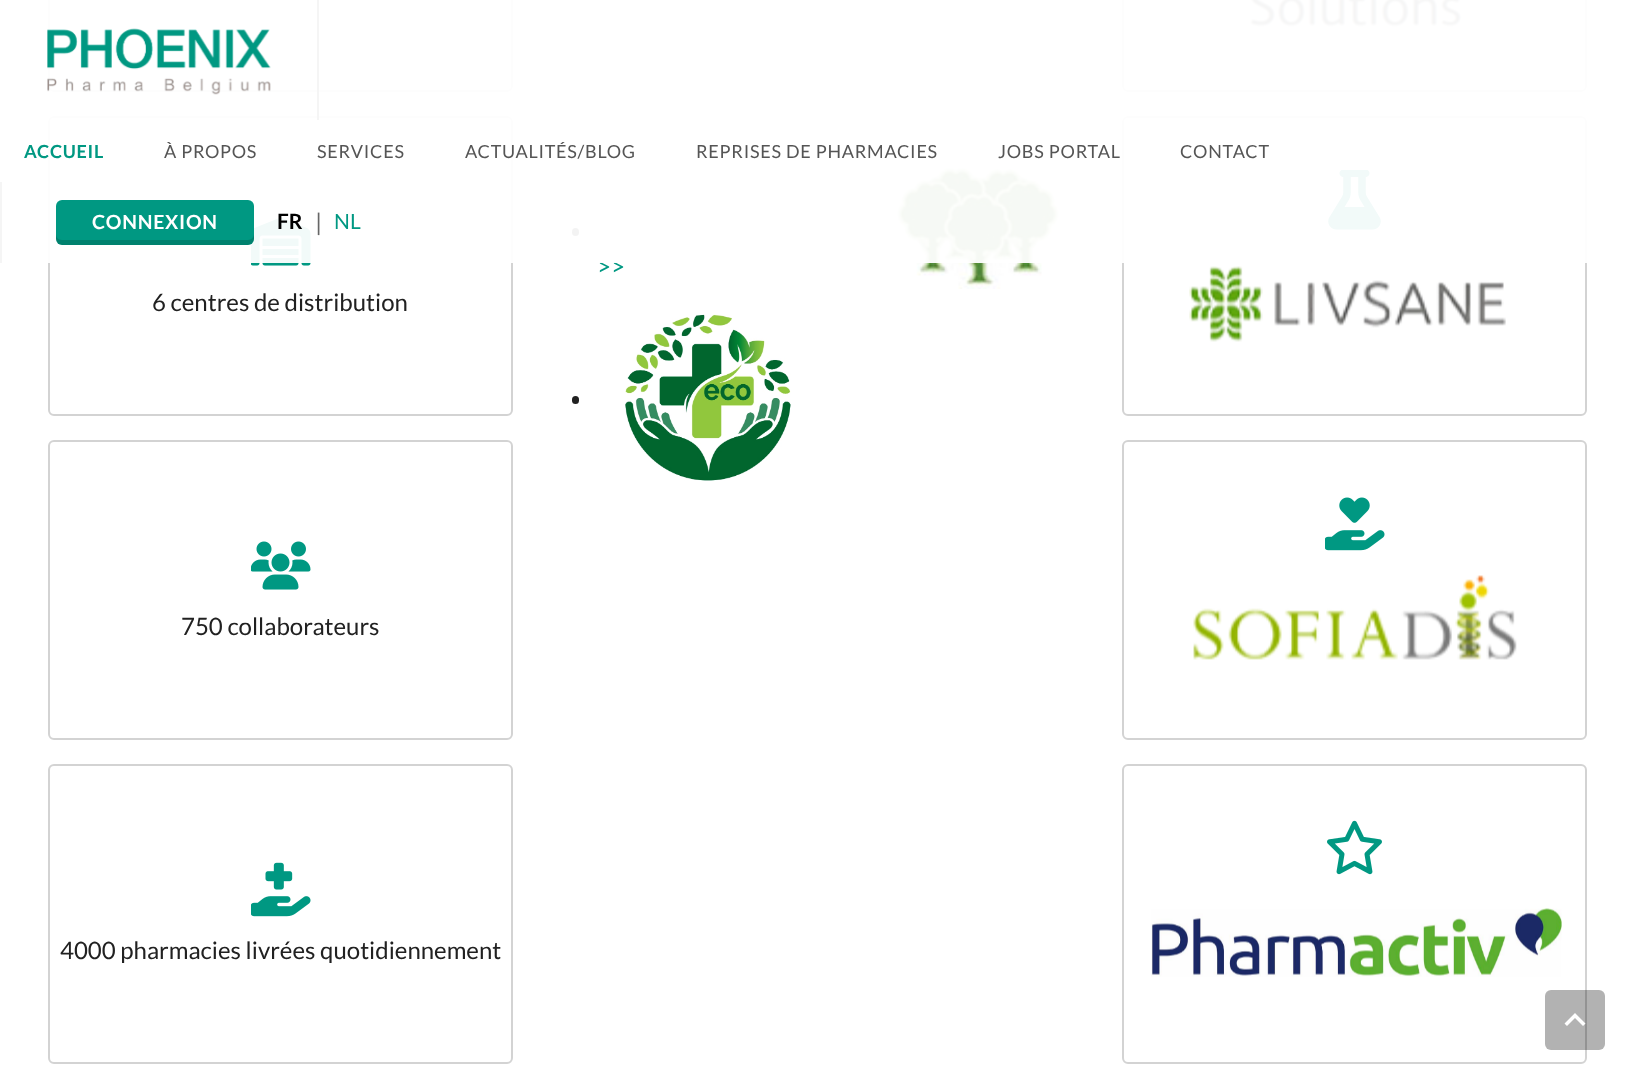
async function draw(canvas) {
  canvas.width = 1634;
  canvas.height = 1080;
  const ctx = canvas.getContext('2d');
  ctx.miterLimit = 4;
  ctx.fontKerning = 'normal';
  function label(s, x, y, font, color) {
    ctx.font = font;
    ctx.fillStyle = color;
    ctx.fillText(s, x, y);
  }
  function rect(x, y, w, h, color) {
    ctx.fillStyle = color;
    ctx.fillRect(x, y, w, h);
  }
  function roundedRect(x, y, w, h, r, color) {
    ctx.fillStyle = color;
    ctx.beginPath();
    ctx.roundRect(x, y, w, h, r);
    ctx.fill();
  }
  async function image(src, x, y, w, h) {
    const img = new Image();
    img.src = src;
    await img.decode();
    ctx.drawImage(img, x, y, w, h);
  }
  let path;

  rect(0, 0, 1634, 1080, '#fff');
  roundedRect(572, 228, 7, 8, 3.5, '#212121');
  label('>>', 597, 275, '24px Lato', '#009882');
  await image('assets/img3.png', 889, 165, 173, 124);
  ctx.beginPath();
  ctx.roundRect(1123, -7, 463, 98, 5);
  ctx.strokeStyle = '#d3d3d3';
  ctx.lineWidth = 2;
  ctx.stroke();
  await image('assets/img4.png', 1249, 0, 213, 28);
  ctx.beginPath();
  ctx.roundRect(1123, 117, 463, 298, 5);
  ctx.stroke();
  await image('assets/img5.png', 1328, 170, 53, 60);
  ctx.beginPath();
  ctx.roundRect(49, -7, 463, 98, 5);
  ctx.stroke();
  ctx.beginPath();
  ctx.roundRect(49, 117, 463, 298, 5);
  ctx.stroke();
  await image('assets/img11.png', 251, 217, 60, 49);
  rect(48, 0, 1539, 263, '#fffffff2');
  rect(317, 0, 2, 120, '#f5f5f5');
  await image('assets/img1.png', 47, 28, 224, 67);
  ctx.letterSpacing = '0.75px';
  label('ACCUEIL', 24, 158, 'bold 18px Lato', '#009882');
  label('À PROPOS', 164, 158, '18px Lato', '#555');
  label('SERVICES', 317, 158, '18px Lato', '#555');
  label('ACTUALITÉS/BLOG', 465, 158, '18px Lato', '#555');
  label('REPRISES DE PHARMACIES', 696, 158, '18px Lato', '#555');
  label('JOBS PORTAL', 998, 158, '18px Lato', '#555');
  label('CONTACT', 1180, 158, '18px Lato', '#555');
  rect(0, 182, 2, 81, '#f5f5f5');
  roundedRect(56, 200, 198, 45, 6, '#009882');
  ctx.fillStyle = '#00000026';
  path = new Path2D('M56 234V239C56 242 59 245 62 245H248C251 245 254 242 254 239V234C254 237 251 240 248 240H62C58 240 56 237 56 234Z');
  ctx.fill(path);
  label('CONNEXION', 92, 229, 'bold 19.5px Lato', '#fff');
  ctx.letterSpacing = '0px';
  label('FR', 277, 229, 'bold 21px Lato', '#000');
  label('|', 315, 231, '24px Lato', '#666');
  label('NL', 334, 229, '21px Lato', '#009882');
  roundedRect(572, 396, 7, 8, 3.5, '#212121');
  await image('assets/img2.png', 625, 314, 166, 167);
  await image('assets/img6.png', 1189, 266, 317, 76);
  ctx.beginPath();
  ctx.roundRect(1123, 441, 463, 298, 5);
  ctx.stroke();
  await image('assets/img7.png', 1325, 497, 60, 54);
  await image('assets/img8.png', 1193, 575, 324, 85);
  ctx.beginPath();
  ctx.roundRect(1123, 765, 463, 298, 5);
  ctx.stroke();
  await image('assets/img9.png', 1327, 820, 55, 55);
  await image('assets/img10.png', 1151, 908, 411, 69);
  label('6 centres de distribution', 152, 311, '24px Lato', '#212121');
  ctx.beginPath();
  ctx.roundRect(49, 441, 463, 298, 5);
  ctx.stroke();
  await image('assets/img12.png', 251, 541, 60, 49);
  label('750 collaborateurs', 181, 635, '24px Lato', '#212121');
  ctx.beginPath();
  ctx.roundRect(49, 765, 463, 298, 5);
  ctx.stroke();
  await image('assets/img13.png', 251, 862, 60, 55);
  label('4000 pharmacies livrées quotidiennement', 60, 959, '24px Lato', '#212121');
  roundedRect(1545, 990, 60, 60, 6, '#0000004d');
  ctx.fillStyle = '#fff';
  path = new Path2D('M1567 1026L1575 1018L1583 1026L1585.5 1023.5L1575 1013L1564.5 1023.5Z');
  ctx.fill(path);
}

draw(document.querySelector('canvas'));
